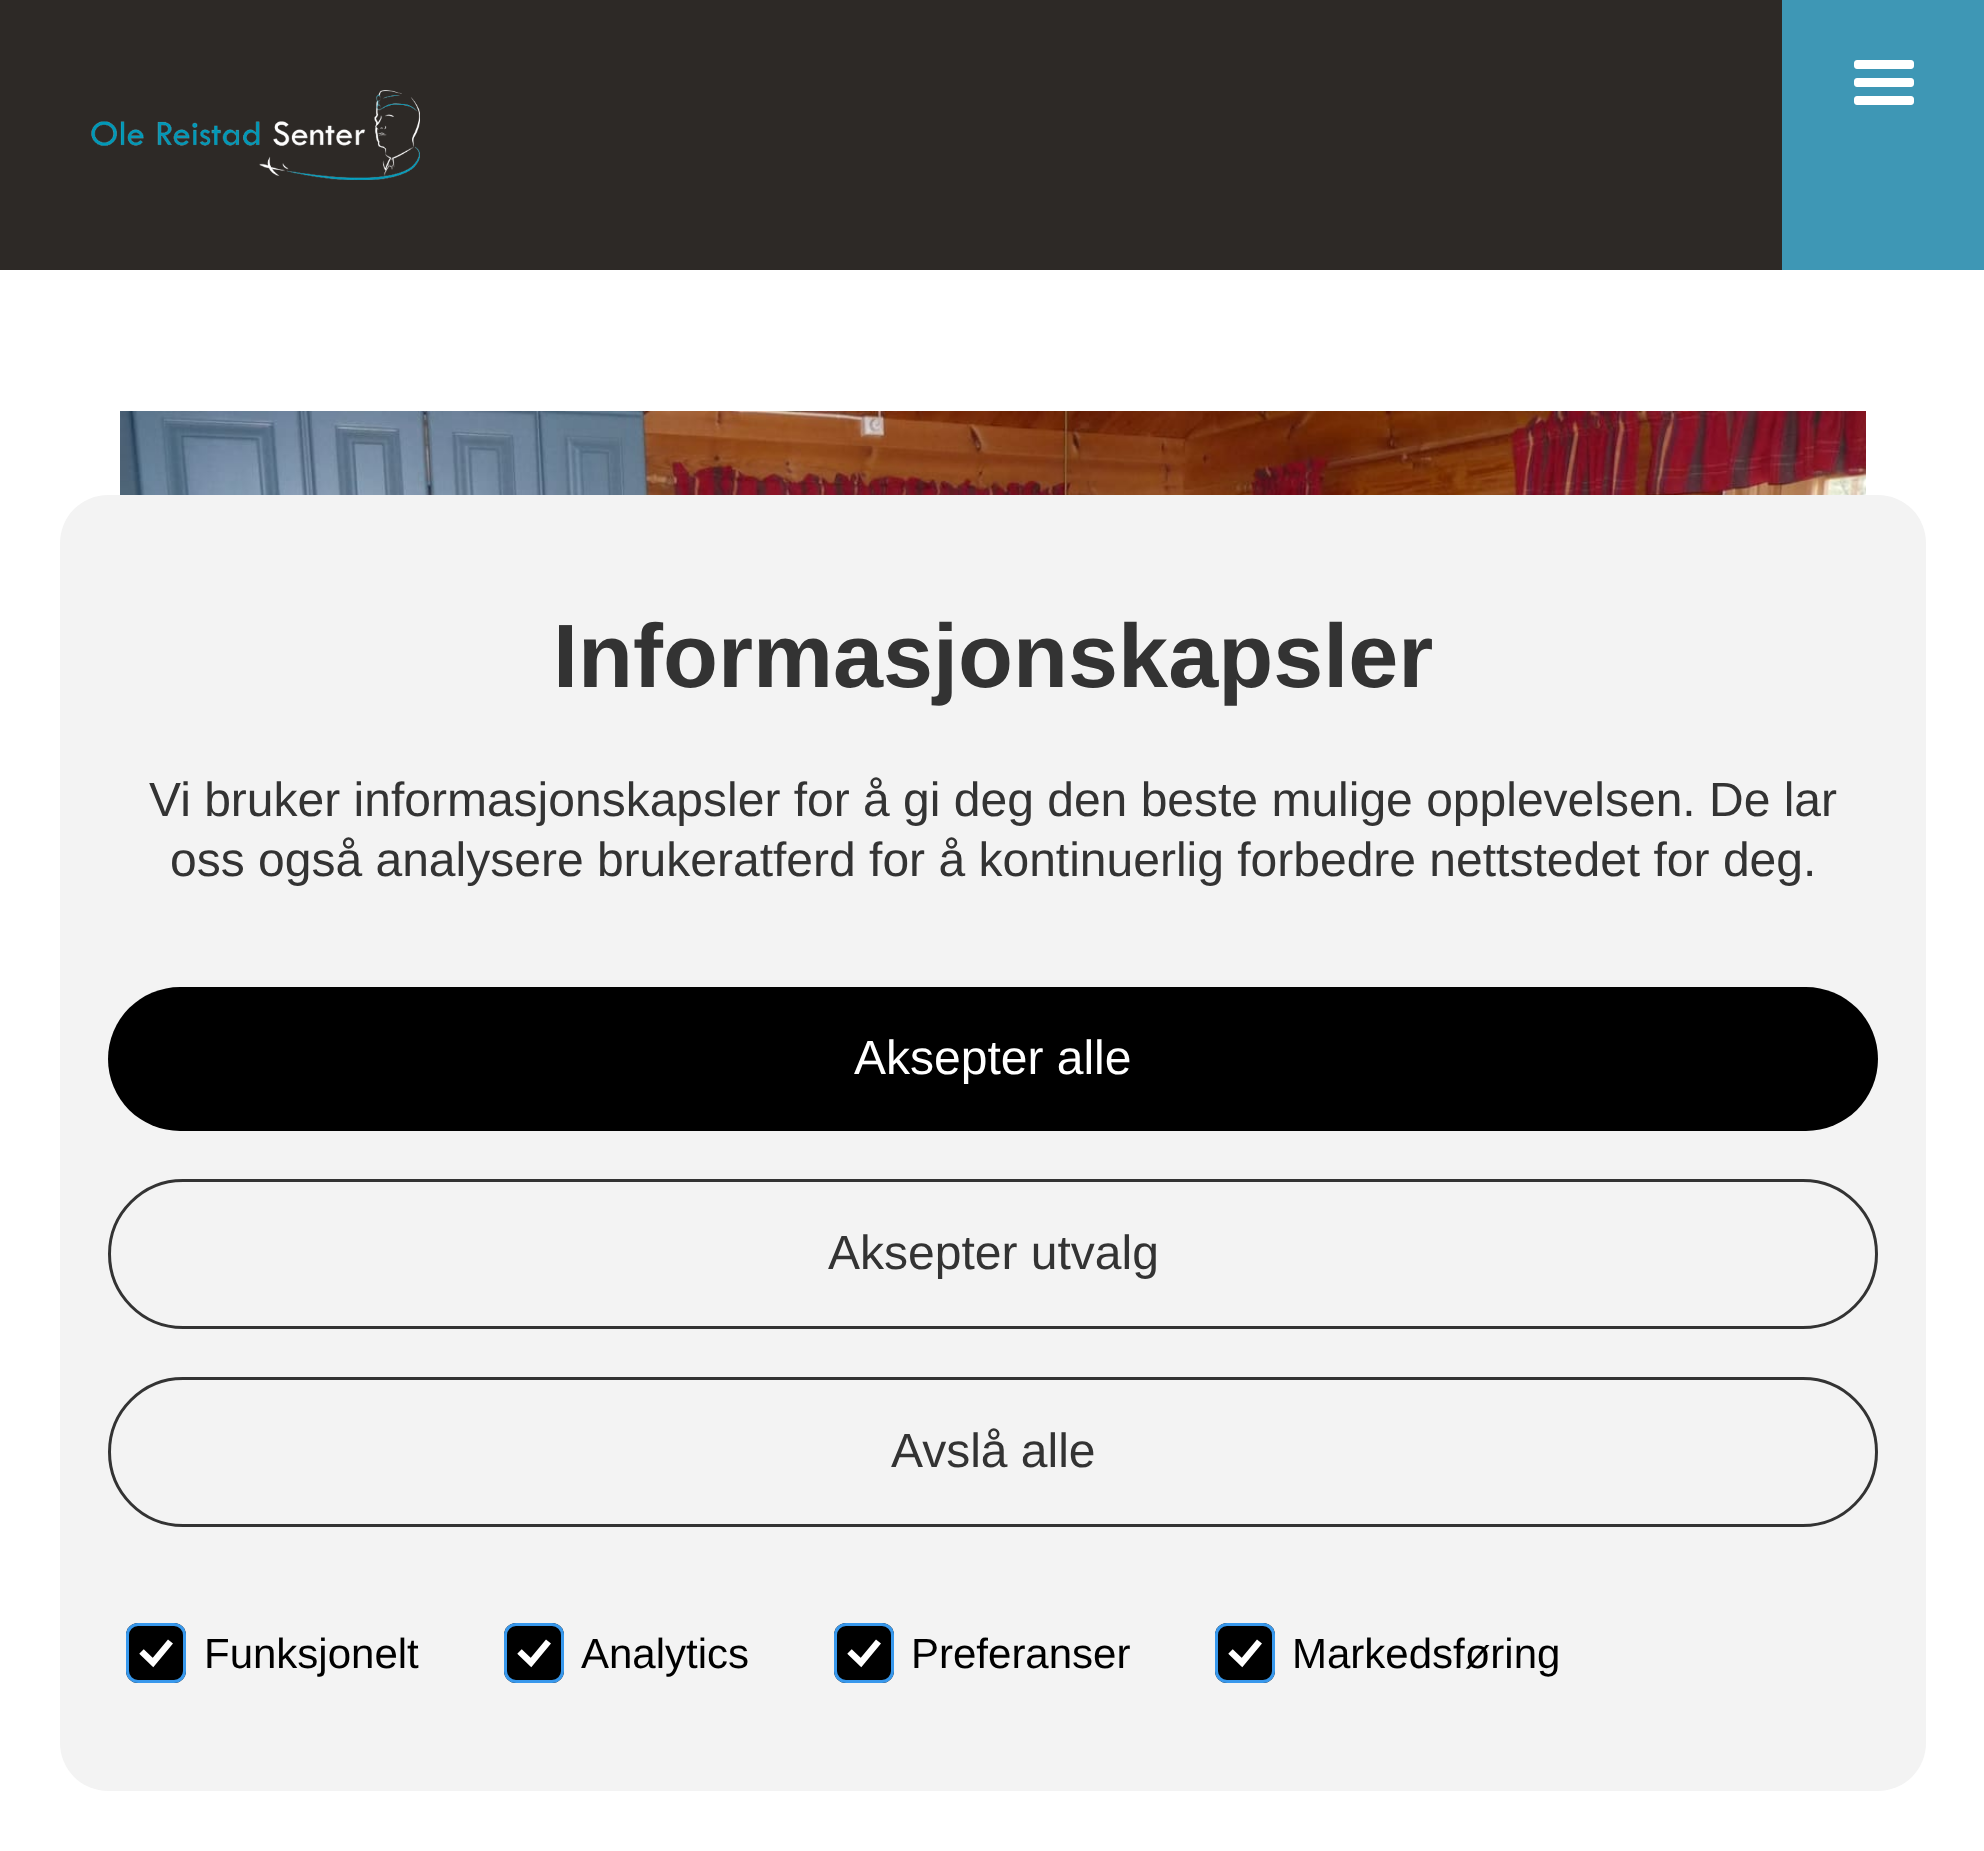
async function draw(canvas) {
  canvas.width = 1984;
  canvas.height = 1851;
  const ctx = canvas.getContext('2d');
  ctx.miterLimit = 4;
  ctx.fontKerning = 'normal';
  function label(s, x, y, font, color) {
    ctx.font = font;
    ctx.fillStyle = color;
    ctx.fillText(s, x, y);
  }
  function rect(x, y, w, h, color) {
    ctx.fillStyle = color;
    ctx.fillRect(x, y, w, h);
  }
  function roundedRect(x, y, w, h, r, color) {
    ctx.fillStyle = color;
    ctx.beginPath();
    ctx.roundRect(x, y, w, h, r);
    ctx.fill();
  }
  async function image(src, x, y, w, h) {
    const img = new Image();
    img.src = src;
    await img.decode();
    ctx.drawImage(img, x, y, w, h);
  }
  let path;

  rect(0, 0, 1984, 1851, '#fff');
  rect(0, 0, 1782, 270, '#2d2926');
  await image('assets/img1.png', 91, 90, 329, 90);
  rect(1782, 0, 202, 270, '#3e97b5');
  await image('assets/img2.png', 1854, 60, 60, 45);
  await image('assets/img3.png', 120, 411, 1746, 84);
  roundedRect(60, 495, 1866, 1296, 48, '#f3f3f3');
  label('Informasjonskapsler', 553, 687, 'bold 90px Liberation Sans', '#333');
  label('Vi bruker informasjonskapsler for å gi deg den beste mulige opplevelsen. De lar', 149, 816, '48px Liberation Sans', '#333');
  label('oss også analysere brukeratferd for å kontinuerlig forbedre nettstedet for deg.', 170, 876, '48px Liberation Sans', '#333');
  roundedRect(108, 987, 1770, 144, 72, '#000');
  label('Aksepter alle', 854, 1074, '48px Liberation Sans', '#fff');
  ctx.beginPath();
  ctx.roundRect(109.5, 1180.5, 1767, 147, 73.5);
  ctx.strokeStyle = '#333';
  ctx.lineWidth = 3;
  ctx.stroke();
  label('Aksepter utvalg', 828, 1269, '48px Liberation Sans', '#333');
  ctx.beginPath();
  ctx.roundRect(109.5, 1378.5, 1767, 147, 73.5);
  ctx.stroke();
  label('Avslå alle', 891, 1467, '48px Liberation Sans', '#333');
  roundedRect(126, 1623, 60, 60, 12, '#000');
  path = new Path2D('M170.5 1641.5L153 1662.5L141.5 1651.5');
  ctx.strokeStyle = '#fff';
  ctx.lineWidth = 6.5;
  ctx.stroke(path);
  ctx.beginPath();
  ctx.roundRect(127.5, 1624.5, 57, 57, 10.5);
  ctx.strokeStyle = '#3898ec';
  ctx.lineWidth = 3;
  ctx.stroke();
  label('Funksjonelt', 204, 1668, '42px Liberation Sans', '#000');
  roundedRect(504, 1623, 60, 60, 12, '#000');
  path = new Path2D('M548.5 1641.5L531 1662.5L519.5 1651.5');
  ctx.strokeStyle = '#fff';
  ctx.lineWidth = 6.5;
  ctx.stroke(path);
  ctx.beginPath();
  ctx.roundRect(505.5, 1624.5, 57, 57, 10.5);
  ctx.strokeStyle = '#3898ec';
  ctx.lineWidth = 3;
  ctx.stroke();
  label('Analytics', 581, 1668, '42px Liberation Sans', '#000');
  roundedRect(834, 1623, 60, 60, 12, '#000');
  path = new Path2D('M878.5 1641.5L861 1662.5L849.5 1651.5');
  ctx.strokeStyle = '#fff';
  ctx.lineWidth = 6.5;
  ctx.stroke(path);
  ctx.beginPath();
  ctx.roundRect(835.5, 1624.5, 57, 57, 10.5);
  ctx.strokeStyle = '#3898ec';
  ctx.lineWidth = 3;
  ctx.stroke();
  label('Preferanser', 911, 1668, '42px Liberation Sans', '#000');
  roundedRect(1215, 1623, 60, 60, 12, '#000');
  path = new Path2D('M1259.5 1641.5L1242 1662.5L1230.5 1651.5');
  ctx.strokeStyle = '#fff';
  ctx.lineWidth = 6.5;
  ctx.stroke(path);
  ctx.beginPath();
  ctx.roundRect(1216.5, 1624.5, 57, 57, 10.5);
  ctx.strokeStyle = '#3898ec';
  ctx.lineWidth = 3;
  ctx.stroke();
  label('Markedsføring', 1292, 1668, '42px Liberation Sans', '#000');
}

draw(document.querySelector('canvas'));
